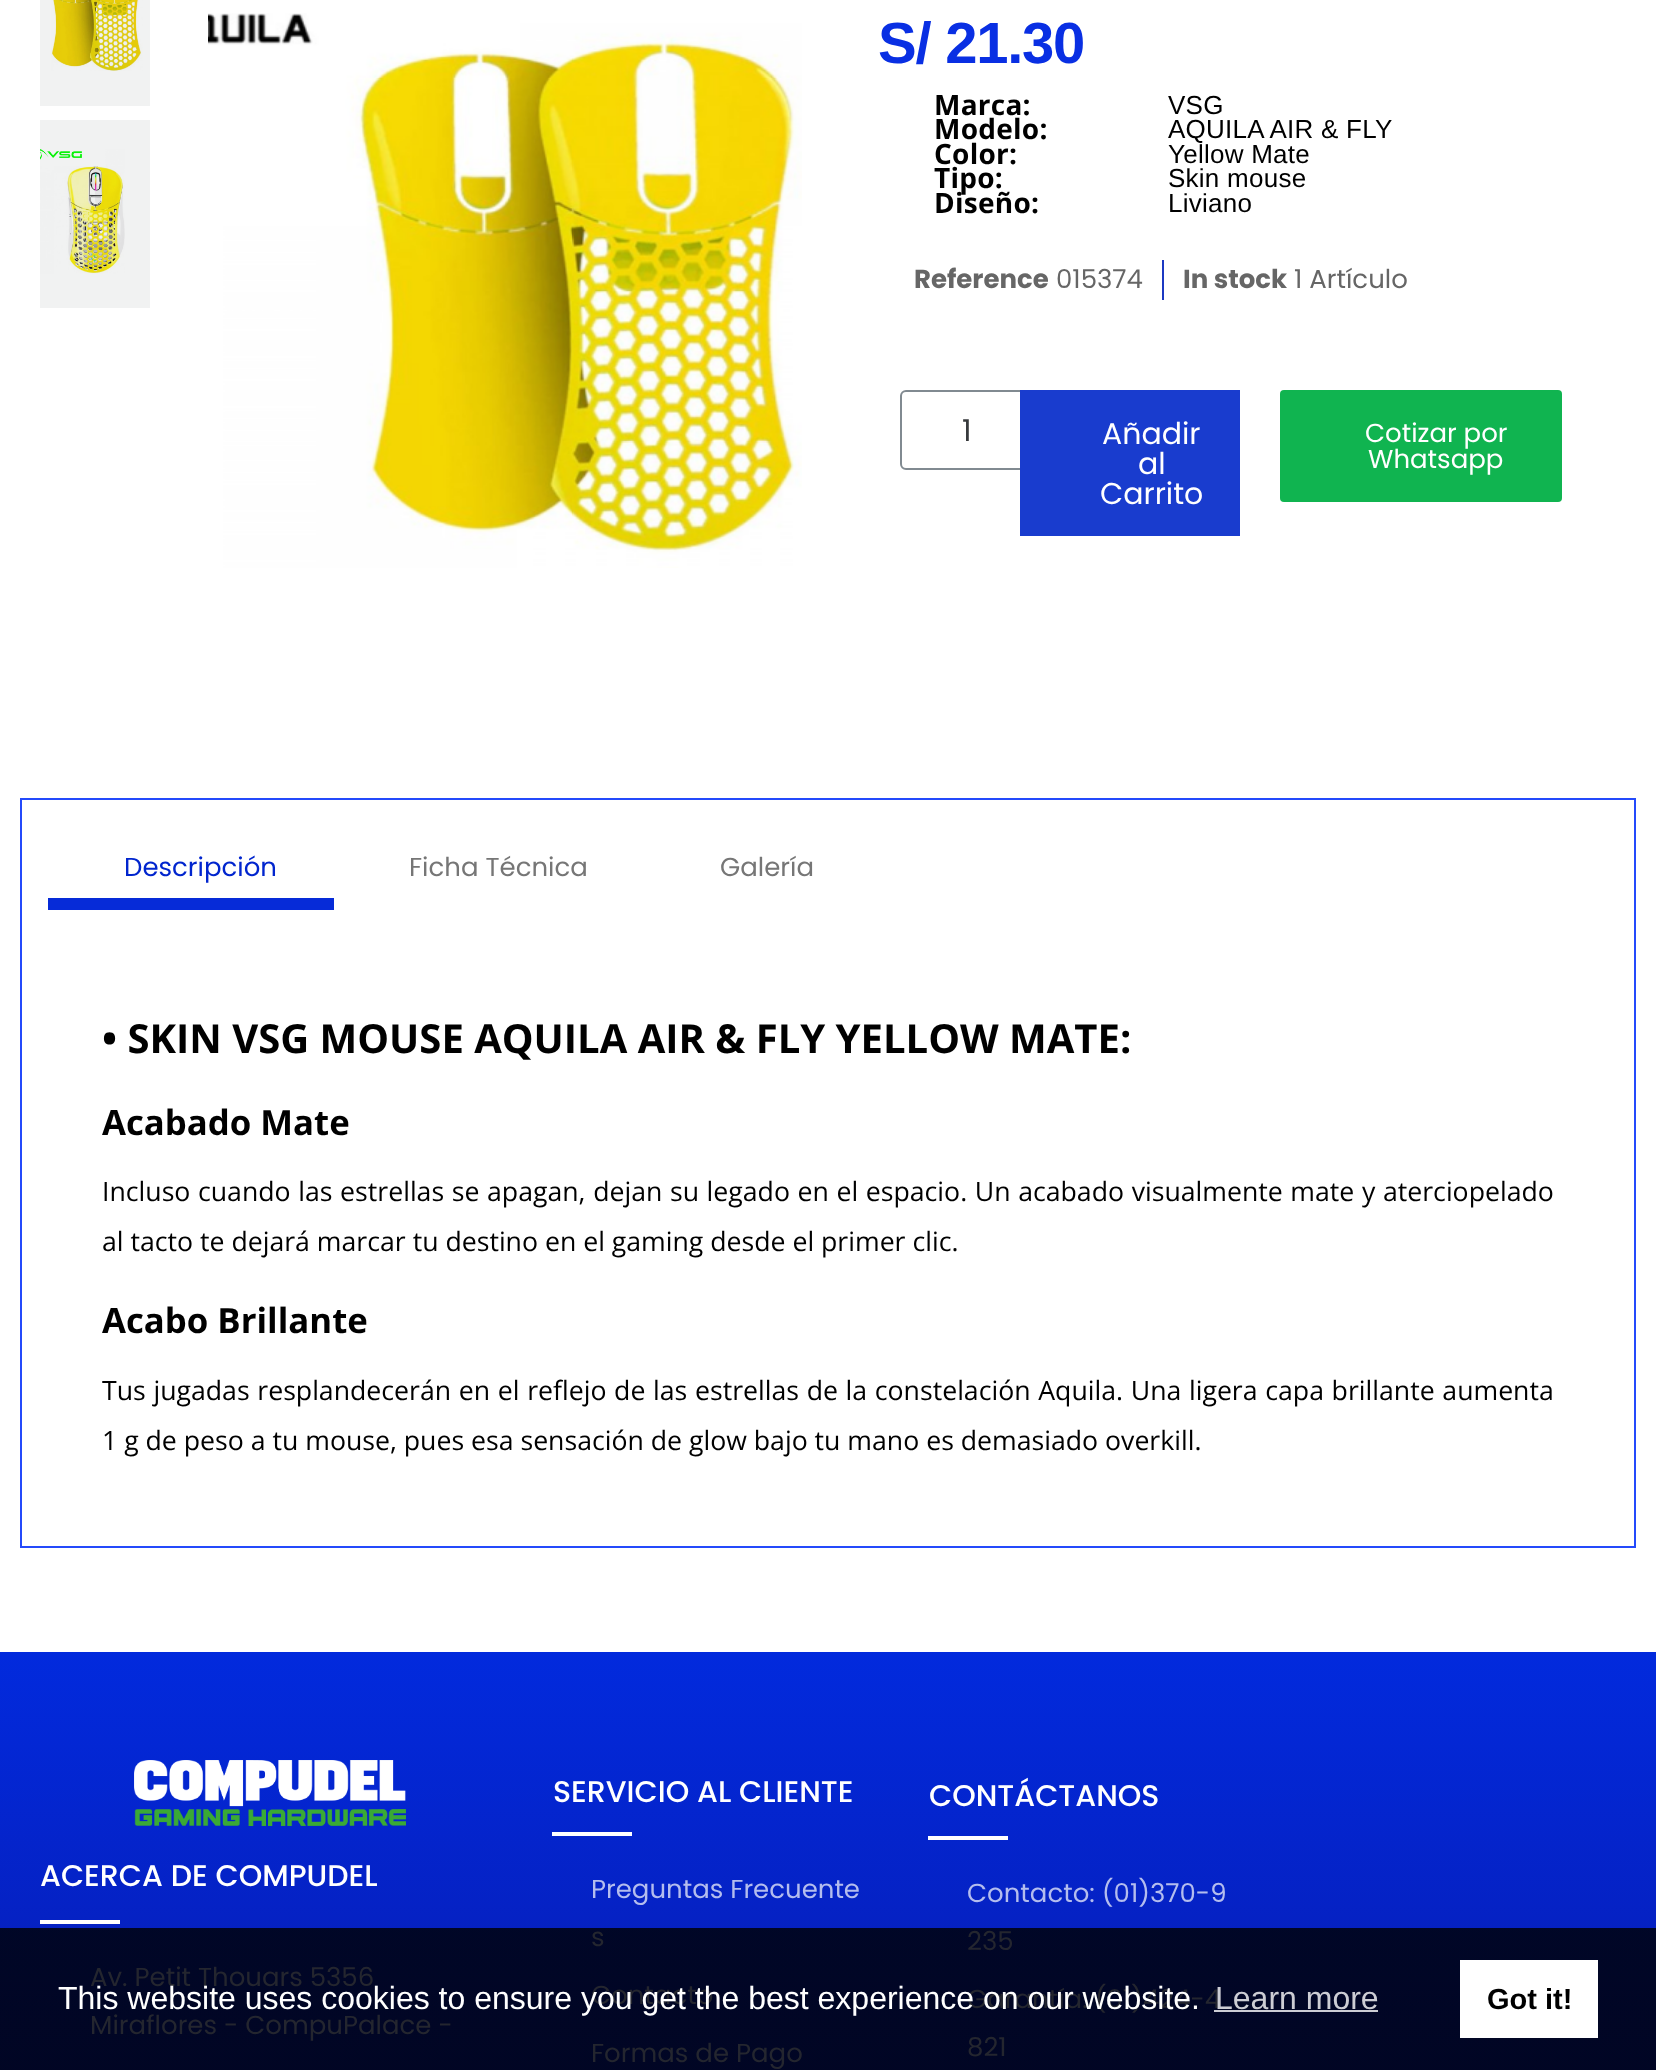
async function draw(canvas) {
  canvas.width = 1656;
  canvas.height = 2070;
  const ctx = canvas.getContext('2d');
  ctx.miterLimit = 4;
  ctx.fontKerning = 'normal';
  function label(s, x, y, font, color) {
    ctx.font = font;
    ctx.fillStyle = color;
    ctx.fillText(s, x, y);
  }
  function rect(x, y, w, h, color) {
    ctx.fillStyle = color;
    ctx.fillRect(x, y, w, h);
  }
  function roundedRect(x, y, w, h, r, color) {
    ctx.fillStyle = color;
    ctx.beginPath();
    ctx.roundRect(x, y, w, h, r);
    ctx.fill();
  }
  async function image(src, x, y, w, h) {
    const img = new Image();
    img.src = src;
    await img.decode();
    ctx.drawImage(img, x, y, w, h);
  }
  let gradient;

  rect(0, 0, 1656, 2070, '#fff');
  rect(40, 120, 110, 188, '#f1f2f2');
  rect(40, 0, 110, 106, '#f1f2f2');
  await image('assets/img1.png', 51, 0, 92, 71);
  await image('assets/img2.png', 40, 149, 85, 125);
  await image('assets/img3.png', 208, 13, 594, 555);
  ctx.letterSpacing = '-1.25px';
  label('S/ 21.30', 878, 63, 'bold 58px Liberation Sans', '#092fe3');
  ctx.letterSpacing = '0.25px';
  label('Marca:', 934, 115, 'bold 28px Open Sans', '#000');
  label('VSG', 1168, 114, '26px Liberation Sans', '#000');
  label('Modelo:', 934, 139, 'bold 28px Open Sans', '#000');
  label('AQUILA AIR & FLY', 1168, 138, '26px Liberation Sans', '#000');
  label('Color:', 934, 164, 'bold 28px Open Sans', '#000');
  label('Yellow Mate', 1168, 163, '26px Liberation Sans', '#000');
  label('Tipo:', 934, 188, 'bold 28px Open Sans', '#000');
  label('Skin mouse', 1168, 187, '26px Liberation Sans', '#000');
  label('Diseño:', 934, 213, 'bold 28px Open Sans', '#000');
  label('Liviano', 1168, 212, '26px Liberation Sans', '#000');
  ctx.letterSpacing = '0px';
  label('Reference', 914, 288, 'bold 26px Poppins', '#666');
  label('015374', 1056, 288, '26px Poppins', '#666');
  rect(1162, 260, 2, 40, '#1c39c2');
  label('In stock', 1183, 288, 'bold 26px Poppins', '#666');
  label('1 Artículo', 1294, 288, '26px Poppins', '#666');
  ctx.beginPath();
  ctx.roundRect(901, 391, 148, 78, 5);
  ctx.strokeStyle = '#818a91';
  ctx.lineWidth = 2;
  ctx.stroke();
  label('1', 962, 441, '30px Poppins', '#373a3c');
  rect(1020, 390, 220, 146, '#193cce');
  label('Añadir', 1102, 444, '30px Poppins', '#fff');
  label('al', 1138, 474, '30px Poppins', '#fff');
  label('Carrito', 1100, 504, '30px Poppins', '#fff');
  roundedRect(1280, 390, 282, 112, 4, '#10b450');
  label('Cotizar por', 1365, 442, '26px Poppins', '#fff');
  label('Whatsapp', 1368, 468, '26px Poppins', '#fff');
  ctx.strokeStyle = '#244afb';
  ctx.strokeRect(21, 799, 1614, 748);
  label('Descripción', 124, 876, '26px Poppins', '#0125ce');
  rect(48, 898, 286, 12, '#062bd8');
  label('Ficha Técnica', 409, 876, '26px Poppins', '#767676');
  label('Galería', 720, 876, '26px Poppins', '#767676');
  label('• SKIN VSG MOUSE AQUILA AIR & FLY YELLOW MATE:', 102, 1053, 'bold 40px Open Sans', '#000');
  label('Acabado Mate', 102, 1135, 'bold 34.75px Open Sans', '#000');
  ctx.wordSpacing = '0.7px';
  label('Incluso cuando las estrellas se apagan, dejan su legado en el espacio. Un acabado visualmente mate y aterciopelado', 102, 1201, '26.67px Open Sans', '#000');
  ctx.wordSpacing = '0px';
  label('al tacto te dejará marcar tu destino en el gaming desde el primer clic.', 102, 1251, '26.67px Open Sans', '#000');
  label('Acabo Brillante', 102, 1333, 'bold 34.75px Open Sans', '#000');
  ctx.wordSpacing = '0.75px';
  label('Tus jugadas resplandecerán en el reflejo de las estrellas de la constelación Aquila. Una ligera capa brillante aumenta', 102, 1400, '26.67px Open Sans', '#000');
  ctx.wordSpacing = '0px';
  label('1 g de peso a tu mouse, pues esa sensación de glow bajo tu mano es demasiado overkill.', 102, 1450, '26.67px Open Sans', '#000');
  gradient = ctx.createLinearGradient(828, 1652, 828, 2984);
  gradient.addColorStop(0, '#022add');
  gradient.addColorStop(1, '#110060');
  ctx.fillStyle = gradient;
  ctx.fillRect(0, 1652, 1656, 276);
  gradient = ctx.createLinearGradient(828, 1652, 828, 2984);
  gradient.addColorStop(0, '#00082c');
  gradient.addColorStop(1, '#030013');
  ctx.fillStyle = gradient;
  ctx.fillRect(0, 1928, 1656, 142);
  await image('assets/img4.png', 134, 1760, 272, 66);
  label('ACERCA DE COMPUDEL', 40, 1886, '500 30px Poppins', '#fff');
  rect(40, 1920, 80, 4, '#fff');
  label('Av. Petit Thouars 5356', 90, 1986, '26px Poppins', '#24262f');
  label('Miraflores - CompuPalace -', 90, 2034, '26px Poppins', '#24262f');
  label('SERVICIO AL CLIENTE', 553, 1802, '500 30px Poppins', '#fff');
  rect(552, 1832, 80, 4, '#fff');
  label('Preguntas Frecuente', 591, 1898, '26px Poppins', '#b4bdee');
  label('s', 591, 1946, '26px Poppins', '#24262f');
  label('Contacto', 591, 2004, '26px Poppins', '#24262f');
  label('Formas de Pago', 591, 2062, '26px Poppins', '#24262f');
  label('CONTÁCTANOS', 929, 1806, '500 30px Poppins', '#fff');
  rect(928, 1836, 80, 4, '#fff');
  label('Contacto: (01)370-9', 967, 1902, '26px Poppins', '#b4bdee');
  label('235', 967, 1950, '26px Poppins', '#24262f');
  label('Garantía: (01)424-4', 967, 2008, '26px Poppins', '#24262f');
  label('821', 967, 2056, '26px Poppins', '#24262f');
  label('This website uses cookies to ensure you get the best experience on our website.', 58, 2009, '32px Liberation Sans', '#fff');
  label('Learn more', 1215, 2009, '32px Liberation Sans', '#cccdd4');
  rect(1214, 2010, 164, 2, '#cccdd3');
  rect(1460, 1960, 138, 78, '#fff');
  label('Got it!', 1487, 2009, 'bold 29px Liberation Sans', '#000');
}

draw(document.querySelector('canvas'));
